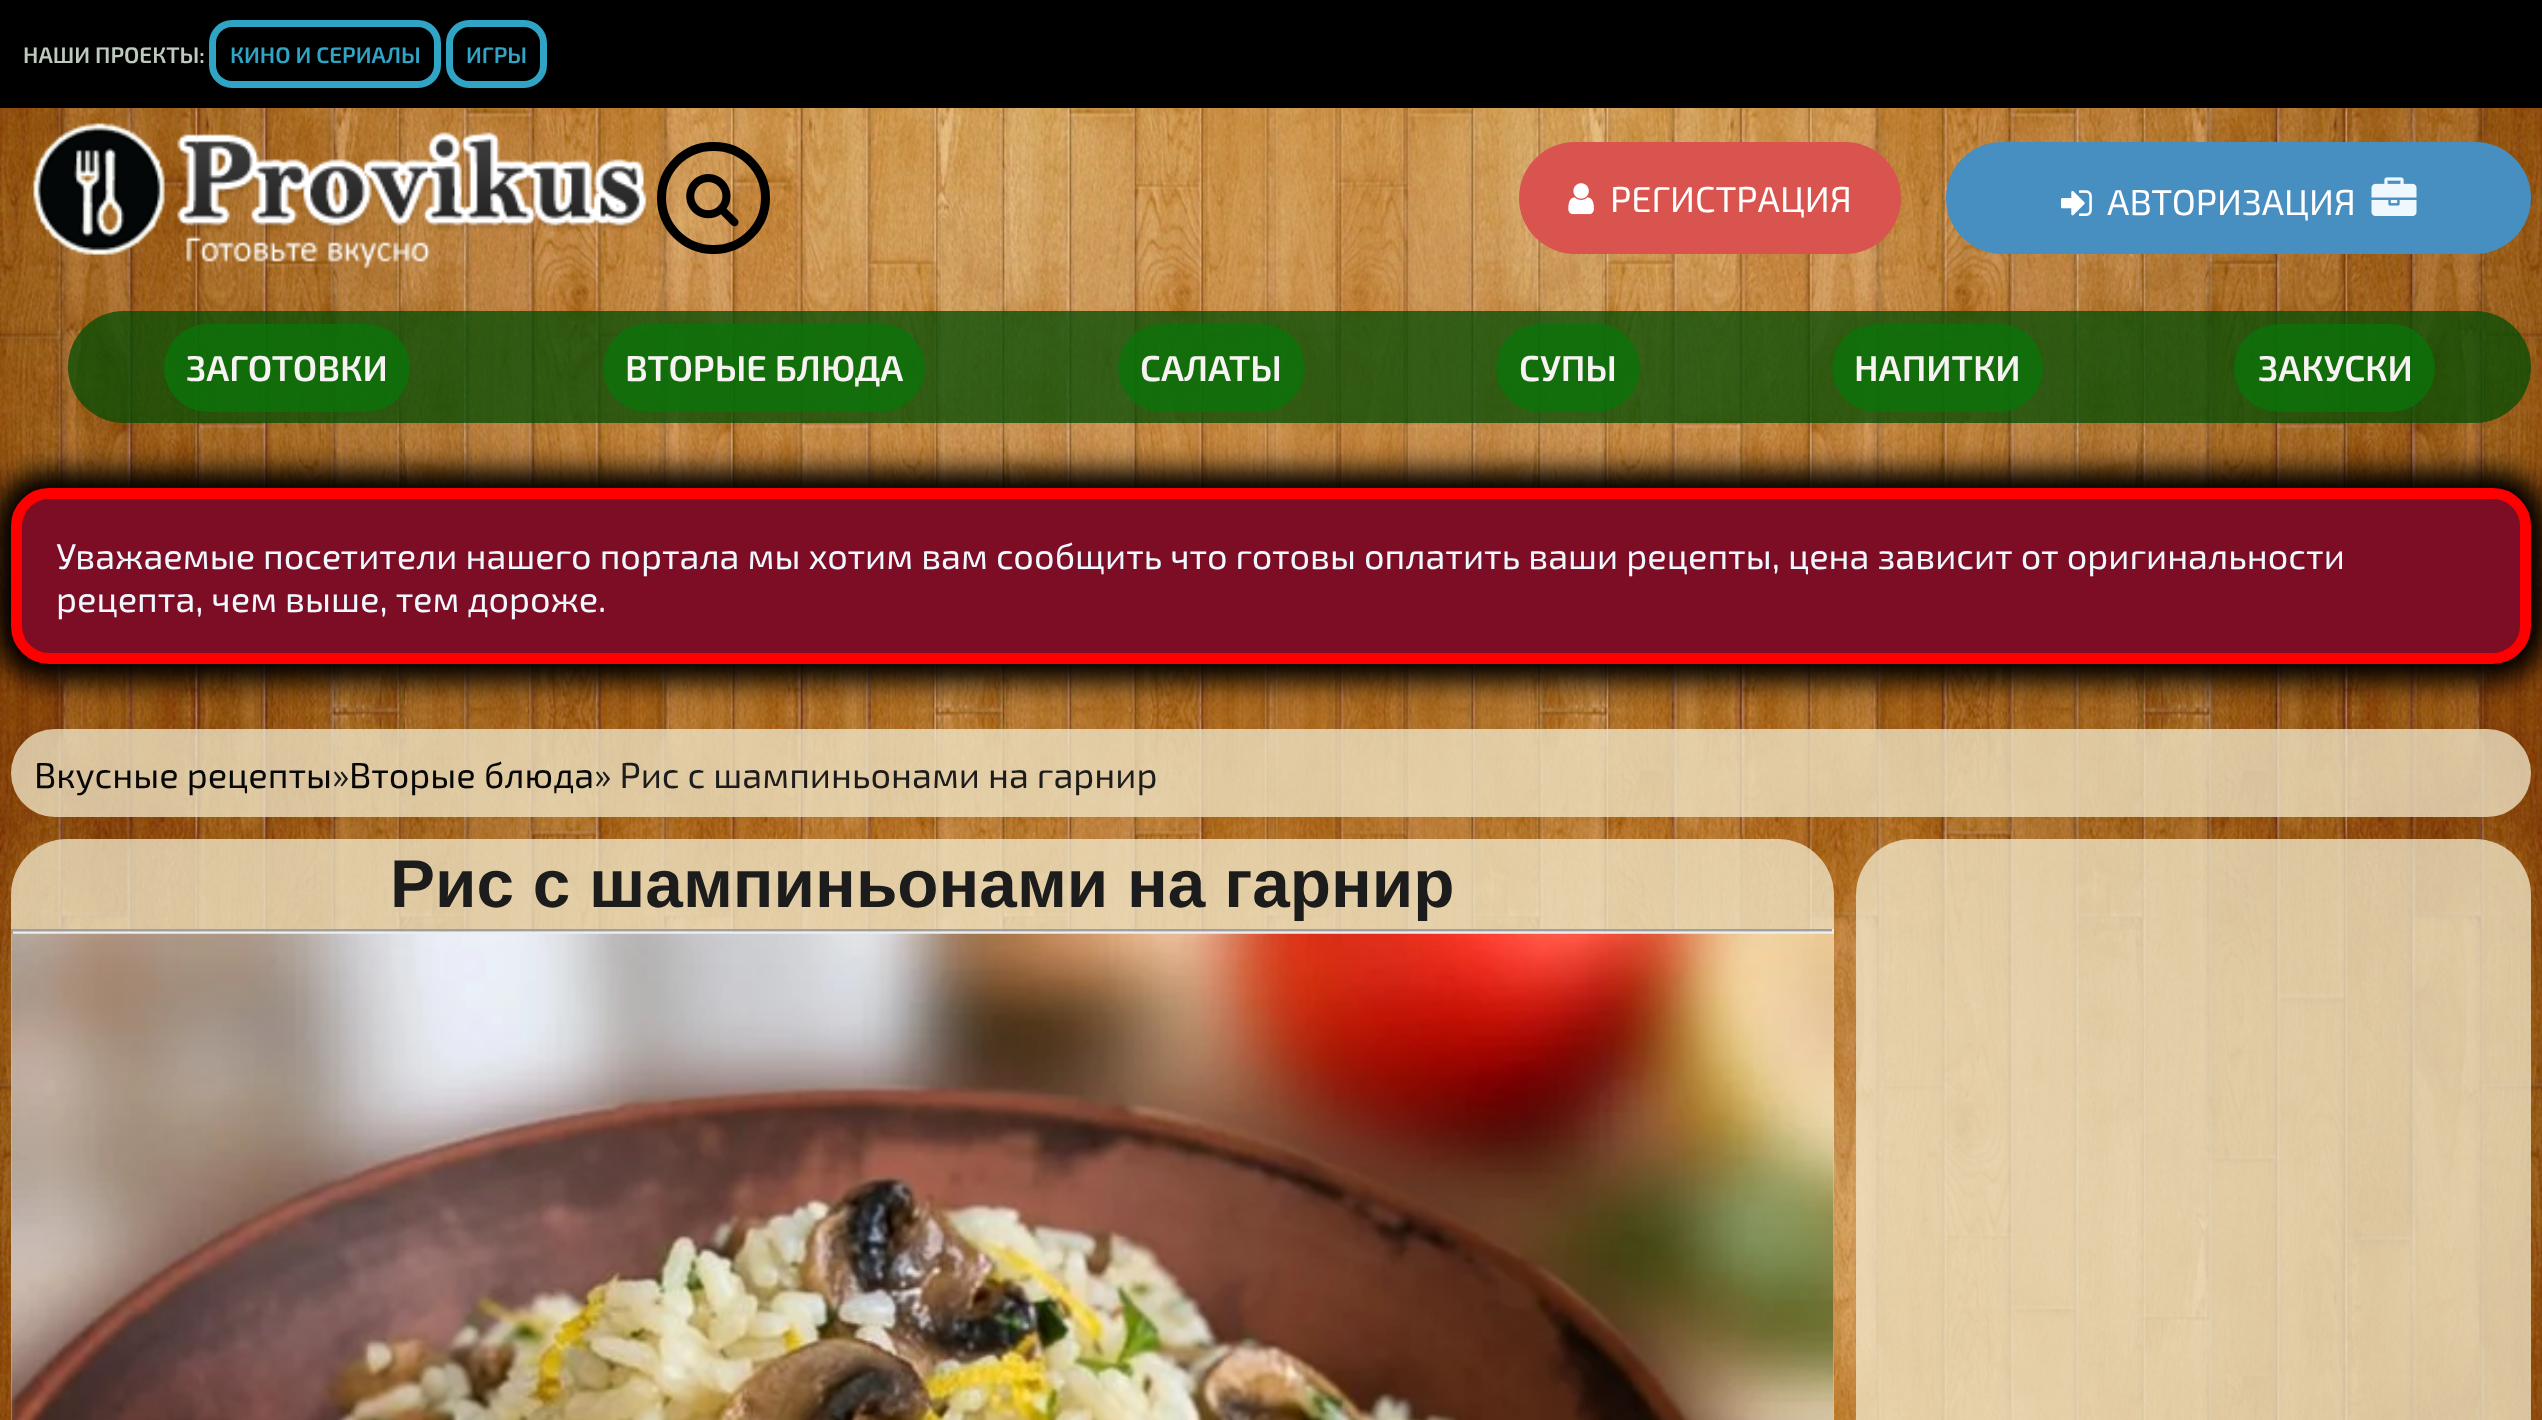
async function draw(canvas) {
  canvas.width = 2542;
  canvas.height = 1420;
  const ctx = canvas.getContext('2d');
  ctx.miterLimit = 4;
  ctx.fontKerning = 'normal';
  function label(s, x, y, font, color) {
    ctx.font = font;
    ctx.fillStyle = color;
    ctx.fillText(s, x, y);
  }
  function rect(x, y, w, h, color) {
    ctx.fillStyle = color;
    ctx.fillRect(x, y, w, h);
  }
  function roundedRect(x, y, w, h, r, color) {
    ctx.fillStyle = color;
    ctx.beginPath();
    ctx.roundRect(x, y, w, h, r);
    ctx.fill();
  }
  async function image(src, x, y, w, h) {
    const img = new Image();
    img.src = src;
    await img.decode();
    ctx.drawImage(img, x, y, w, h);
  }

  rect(0, 0, 2542, 1420, '#fff');
  await image('assets/img1.png', 0, 108, 2542, 1312);
  rect(0, 0, 2542, 108, '#000');
  label('НАШИ ПРОЕКТЫ:', 23, 63, '600 22.5px "Exo 2"', '#becabe');
  ctx.beginPath();
  ctx.roundRect(212.5, 23.5, 225, 61, 19.5);
  ctx.strokeStyle = '#30a4c4';
  ctx.lineWidth = 7;
  ctx.stroke();
  label('КИНО И СЕРИАЛЫ', 230, 63, '600 22.5px "Exo 2"', '#30a4c4');
  ctx.beginPath();
  ctx.roundRect(449.5, 23.5, 94, 61, 19.5);
  ctx.stroke();
  label('ИГРЫ', 466, 63, '600 22.5px "Exo 2"', '#30a4c4');
  await image('assets/img2.png', 33, 123, 614, 146);
  ctx.beginPath();
  ctx.roundRect(661.5, 146.5, 104, 103, 51.5);
  ctx.strokeStyle = '#000';
  ctx.lineWidth = 9;
  ctx.stroke();
  await image('assets/img3.png', 686, 174, 53, 53);
  roundedRect(1519, 142, 382, 112, 56, '#d9534f');
  await image('assets/img4.png', 1568, 183, 26, 32);
  label('РЕГИСТРАЦИЯ', 1610, 212, '36px "Exo 2"', '#fff');
  roundedRect(1946, 142, 585, 112, 56, '#478ec1');
  await image('assets/img5.png', 2061, 190, 31, 26);
  label('АВТОРИЗАЦИЯ', 2107, 215, '36px "Exo 2"', '#fff');
  await image('assets/img6.png', 2371, 177, 46, 39);
  roundedRect(68, 311, 2463, 112, 56, '#044c04c2');
  roundedRect(164, 324, 246, 88, 44, '#097409c2');
  label('ЗАГОТОВКИ', 186, 381, '600 36px "Exo 2"', '#f8f3f3');
  roundedRect(603, 324, 322, 88, 44, '#097409c2');
  label('ВТОРЫЕ БЛЮДА', 625, 381, '600 36px "Exo 2"', '#f8f3f3');
  roundedRect(1118, 324, 187, 88, 44, '#097409c2');
  label('САЛАТЫ', 1140, 381, '600 36px "Exo 2"', '#f8f3f3');
  roundedRect(1496, 324, 144, 88, 44, '#097409c2');
  label('СУПЫ', 1519, 381, '600 36px "Exo 2"', '#f8f3f3');
  roundedRect(1832, 324, 211, 88, 44, '#097409c2');
  label('НАПИТКИ', 1854, 381, '600 36px "Exo 2"', '#f8f3f3');
  roundedRect(2234, 324, 201, 88, 44, '#097409c2');
  label('ЗАКУСКИ', 2258, 381, '600 36px "Exo 2"', '#f8f3f3');
  ctx.fillStyle = '#000';
  ctx.filter = 'blur(13.5px)';
  ctx.beginPath();
  ctx.roundRect(-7, 470, 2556, 212, 56);
  ctx.fill();
  ctx.filter = 'none';
  ctx.fillStyle = '#7d0d24';
  ctx.beginPath();
  ctx.roundRect(16.5, 493.5, 2509, 165, 32.5);
  ctx.fill();
  ctx.strokeStyle = '#f00';
  ctx.lineWidth = 11;
  ctx.stroke();
  label('Уважаемые посетители нашего портала мы хотим вам сообщить что готовы оплатить ваши рецепты, цена зависит от оригинальности', 56, 569, '36px "Exo 2"', '#f0f8ff');
  label('рецепта, чем выше, тем дороже.', 56, 612, '36px "Exo 2"', '#f0f8ff');
  roundedRect(11, 729, 2520, 88, 44, '#efe5c7c7');
  label('Вкусные рецепты', 34, 788, '36px "Exo 2"', '#070707');
  label('»', 332, 788, '36px "Exo 2"', '#1d1c1c');
  label('Вторые блюда', 349, 788, '36px "Exo 2"', '#070707');
  label('» Рис с шампиньонами на гарнир', 594, 788, '36px "Exo 2"', '#1d1c1c');
  roundedRect(11, 839, 1823, 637, 56, '#efe5c7c7');
  label('Рис с шампиньонами на гарнир', 390, 907, 'bold 67.5px Liberation Sans', '#1d1c1c');
  rect(11, 929, 1823, 2, '#9f9f9f');
  rect(1832, 929, 2, 5, '#eee');
  rect(11, 932, 1823, 2, '#eee');
  rect(11, 929, 2, 5, '#9f9f9f');
  await image('assets/img7.png', 11, 933, 1823, 487);
  roundedRect(1856, 839, 675, 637, 56, '#efe5c7c7');
}

draw(document.querySelector('canvas'));
